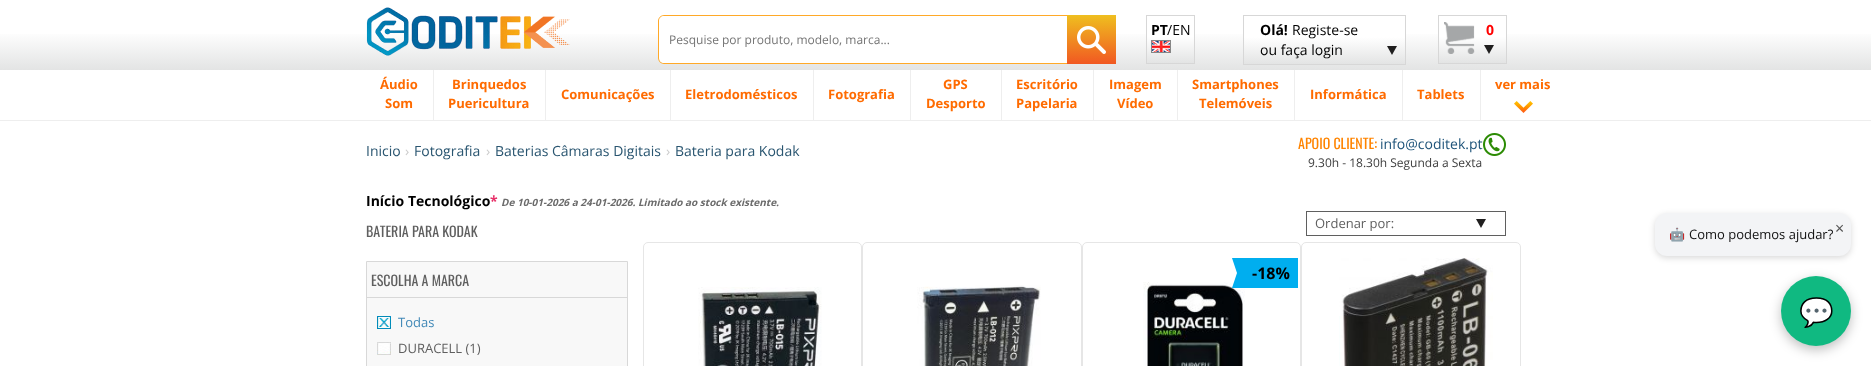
async function draw(canvas) {
  canvas.width = 1871;
  canvas.height = 366;
  const ctx = canvas.getContext('2d');
  ctx.miterLimit = 4;
  ctx.fontKerning = 'normal';
  function label(s, x, y, font, color) {
    ctx.font = font;
    ctx.fillStyle = color;
    ctx.fillText(s, x, y);
  }
  function rect(x, y, w, h, color) {
    ctx.fillStyle = color;
    ctx.fillRect(x, y, w, h);
  }
  function roundedRect(x, y, w, h, r, color) {
    ctx.fillStyle = color;
    ctx.beginPath();
    ctx.roundRect(x, y, w, h, r);
    ctx.fill();
  }
  async function image(src, x, y, w, h) {
    const img = new Image();
    img.src = src;
    await img.decode();
    ctx.drawImage(img, x, y, w, h);
  }
  let gradient, path;

  rect(0, 0, 1871, 366, '#fff');
  gradient = ctx.createLinearGradient(936, 0, 936, 70);
  gradient.addColorStop(0.44, '#fff');
  gradient.addColorStop(1, '#e3e4e4');
  ctx.fillStyle = gradient;
  ctx.fillRect(0, 34, 1871, 36);
  await image('assets/img1.png', 366, 7, 204, 49);
  gradient = ctx.createLinearGradient(1171, 16, 1171, 63);
  gradient.addColorStop(0.44, '#fff');
  gradient.addColorStop(1, '#e3e4e4');
  ctx.fillStyle = gradient;
  ctx.fillRect(1147, 34, 47, 29);
  ctx.strokeStyle = '#d7d7d7';
  ctx.strokeRect(1146.5, 15.5, 48, 48);
  label('PT', 1151, 35, 'bold 14px Open Sans', '#000');
  label('/EN', 1167, 35, '14px Open Sans', '#000');
  await image('assets/img2.png', 1151, 40, 20, 13);
  gradient = ctx.createLinearGradient(1325, 16, 1325, 64);
  gradient.addColorStop(0.44, '#fff');
  gradient.addColorStop(1, '#e3e4e4');
  ctx.fillStyle = gradient;
  ctx.fillRect(1244, 34, 161, 30);
  ctx.strokeRect(1243.5, 15.5, 162, 49);
  label('Olá!', 1260, 35, 'bold 14px Open Sans', '#000');
  label('Registe-se', 1292, 35, '14px Open Sans', '#000');
  label('ou faça login', 1260, 55, '14px Open Sans', '#000');
  await image('assets/img3.png', 1387, 46, 10, 9);
  gradient = ctx.createLinearGradient(1473, 16, 1473, 63);
  gradient.addColorStop(0.44, '#fff');
  gradient.addColorStop(1, '#e3e4e4');
  ctx.fillStyle = gradient;
  ctx.fillRect(1439, 34, 67, 29);
  ctx.strokeRect(1438.5, 15.5, 68, 48);
  await image('assets/img4.png', 1444, 22, 31, 32);
  label('0', 1486, 35, 'bold 14px Open Sans', '#f00');
  await image('assets/img5.png', 1484, 45, 10, 9);
  ctx.fillStyle = '#fff';
  path = new Path2D('M664 16H1110C1113 16 1116 18 1116 21V58C1116 61 1113 63 1110 63H664C661 63 659 61 659 58V21C659 18 661 16 664 16Z');
  ctx.fill(path);
  ctx.fillStyle = '#ffa928';
  path = new Path2D('M664 15H1110C1113 15 1116 18 1116 21V58C1116 61 1113 64 1110 64H664C661 64 658 61 658 58V21C658 18 661 15 664 15ZM664 16H1110C1113 16 1116 18 1116 21V58C1116 61 1113 63 1110 63H664C661 63 659 61 659 58V21C659 18 661 16 664 16Z');
  ctx.fill(path, 'evenodd');
  label('Pesquise por produto, modelo, marca...', 669, 44, '12px Open Sans', '#757575');
  gradient = ctx.createLinearGradient(1092, 15, 1092, 64);
  gradient.addColorStop(0, '#efbf1f');
  gradient.addColorStop(1, '#f15822');
  ctx.fillStyle = gradient;
  ctx.fillRect(1067, 15, 49, 49);
  await image('assets/img6.png', 1077, 26, 29, 28);
  rect(0, 120, 1871, 1, '#eee');
  label('Áudio', 380, 89, 'bold 13px Open Sans', '#ff6b00');
  label('Som', 385, 108, 'bold 13px Open Sans', '#ff6b00');
  rect(433, 70, 1, 50, '#eee');
  label('Brinquedos', 452, 89, 'bold 13px Open Sans', '#ff6b00');
  label('Puericultura', 448, 108, 'bold 13px Open Sans', '#ff6b00');
  rect(910, 70, 1, 50, '#eee');
  label('GPS', 943, 89, 'bold 13px Open Sans', '#ff6b00');
  label('Desporto', 926, 108, 'bold 13px Open Sans', '#ff6b00');
  rect(1001, 70, 1, 50, '#eee');
  label('Escritório', 1016, 89, 'bold 13px Open Sans', '#ff6b00');
  label('Papelaria', 1016, 108, 'bold 13px Open Sans', '#ff6b00');
  rect(1093, 70, 1, 50, '#eee');
  label('Imagem', 1109, 89, 'bold 13px Open Sans', '#ff6b00');
  label('Vídeo', 1117, 108, 'bold 13px Open Sans', '#ff6b00');
  rect(1177, 70, 1, 50, '#eee');
  label('Smartphones', 1192, 89, 'bold 13px Open Sans', '#ff6b00');
  label('Telemóveis', 1199, 108, 'bold 13px Open Sans', '#ff6b00');
  rect(1480, 70, 1, 50, '#eee');
  label('ver mais', 1495, 89, 'bold 13px Open Sans', '#ff6b00');
  await image('assets/img7.png', 1514, 101, 19, 12);
  rect(545, 70, 1, 50, '#eee');
  label('Comunicações', 561, 99, 'bold 13px Open Sans', '#ff6b00');
  rect(670, 70, 1, 50, '#eee');
  label('Eletrodomésticos', 685, 99, 'bold 13px Open Sans', '#ff6b00');
  rect(813, 70, 1, 50, '#eee');
  label('Fotografia', 828, 99, 'bold 13px Open Sans', '#ff6b00');
  rect(1294, 70, 1, 50, '#eee');
  label('Informática', 1310, 99, 'bold 13px Open Sans', '#ff6b00');
  rect(1402, 70, 1, 50, '#eee');
  label('Tablets', 1417, 99, 'bold 13px Open Sans', '#ff6b00');
  label('Inicio', 366, 156, '14px Open Sans', '#295570');
  label('›', 405, 156, '14px Open Sans', '#ccc');
  label('Fotografia', 414, 156, '14px Open Sans', '#295570');
  label('›', 486, 156, '14px Open Sans', '#ccc');
  label('Baterias Câmaras Digitais', 495, 156, '14px Open Sans', '#295570');
  label('›', 666, 156, '14px Open Sans', '#ccc');
  label('Bateria para Kodak', 675, 156, '14px Open Sans', '#295570');
  label('APOIO CLIENTE:', 1298, 149, '14px Oswald', '#ff8400');
  label('info@coditek.pt', 1380, 149, '14px Open Sans', '#1f547a');
  await image('assets/img8.png', 1483, 133, 23, 23);
  label('9.30h - 18.30h Segunda a Sexta', 1308, 167, '12px Open Sans', '#3d3d3d');
  label('Início Tecnológico', 366, 206, 'bold 14px Open Sans', '#000');
  label('*', 490, 206, 'bold 14px Open Sans', '#e73068');
  label('De 10-01-2026 a 24-01-2026. Limitado ao stock existente.', 501, 206, 'italic bold 10px Open Sans', '#6b6b6b');
  label('BATERIA PARA KODAK', 366, 237, '14px Oswald', '#5f5f5f');
  await image('assets/img9.png', 1476, 219, 10, 9);
  ctx.strokeStyle = '#5f5f5f';
  ctx.strokeRect(1306.5, 211.5, 199, 24);
  label('Ordenar por:', 1315, 228, '13px Open Sans', '#5f5f5f');
  ctx.fillStyle = '#f8f8f8';
  ctx.beginPath();
  ctx.rect(366.5, 261.5, 261, 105);
  ctx.fill();
  ctx.strokeStyle = '#d8d8d8';
  ctx.stroke();
  rect(367, 297, 260, 1, '#d8d8d8');
  label('ESCOLHA A MARCA', 371, 286, '14px Oswald', '#5f5f5f');
  await image('assets/img10.png', 377, 316, 14, 13);
  label('Todas', 398, 327, '13px Open Sans', '#4289b7');
  await image('assets/img11.png', 377, 342, 14, 13);
  label('DURACELL (1)', 398, 353, '13px Open Sans', '#5f5f5f');
  ctx.beginPath();
  ctx.roundRect(643.5, 242.5, 218, 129, 4.5);
  ctx.strokeStyle = '#e6e6e6';
  ctx.stroke();
  await image('assets/img12.png', 698, 287, 124, 79);
  ctx.beginPath();
  ctx.roundRect(862.5, 242.5, 219, 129, 4.5);
  ctx.stroke();
  await image('assets/img13.png', 917, 285, 124, 81);
  ctx.beginPath();
  ctx.roundRect(1082.5, 242.5, 218, 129, 4.5);
  ctx.stroke();
  rect(1252, 258, 46, 30, '#00aeef');
  path = new Path2D('M1232 258H1252L1247 273H1237Z');
  ctx.fill(path);
  rect(1247, 258, 5, 30, '#00aeef');
  await image('assets/img14.png', 1143, 282, 102, 84);
  path = new Path2D('M1252 288H1232L1237 273H1247Z');
  ctx.fill(path);
  label('-18%', 1252, 279, 'bold 16px Open Sans', '#000');
  ctx.beginPath();
  ctx.roundRect(1301.5, 242.5, 219, 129, 4.5);
  ctx.stroke();
  await image('assets/img15.png', 1339, 258, 154, 108);
  ctx.fillStyle = '#00000026';
  ctx.filter = 'blur(3px)';
  ctx.beginPath();
  ctx.roundRect(1655, 215, 196, 43, 12);
  ctx.fill();
  ctx.filter = 'none';
  roundedRect(1655, 213, 196, 43, 12, '#f3f4f6');
  label('🤖', 1669, 239, '13px Noto Color Emoji', '#111');
  label('Como podemos ajudar?', 1689, 239, '13px Open Sans', '#111');
  label('×', 1835, 234, '16px Open Sans', '#555');
  ctx.fillStyle = '#00000040';
  ctx.filter = 'blur(6px)';
  ctx.beginPath();
  ctx.roundRect(1781, 280, 70, 70, 35);
  ctx.fill();
  ctx.filter = 'none';
  ctx.fillStyle = '#10b981';
  ctx.beginPath();
  ctx.arc(1816, 311, 35, 0, 2 * Math.PI);
  ctx.fill();
  label('💬', 1799, 322, '28px Noto Color Emoji', '#fff');
}

draw(document.querySelector('canvas'));
